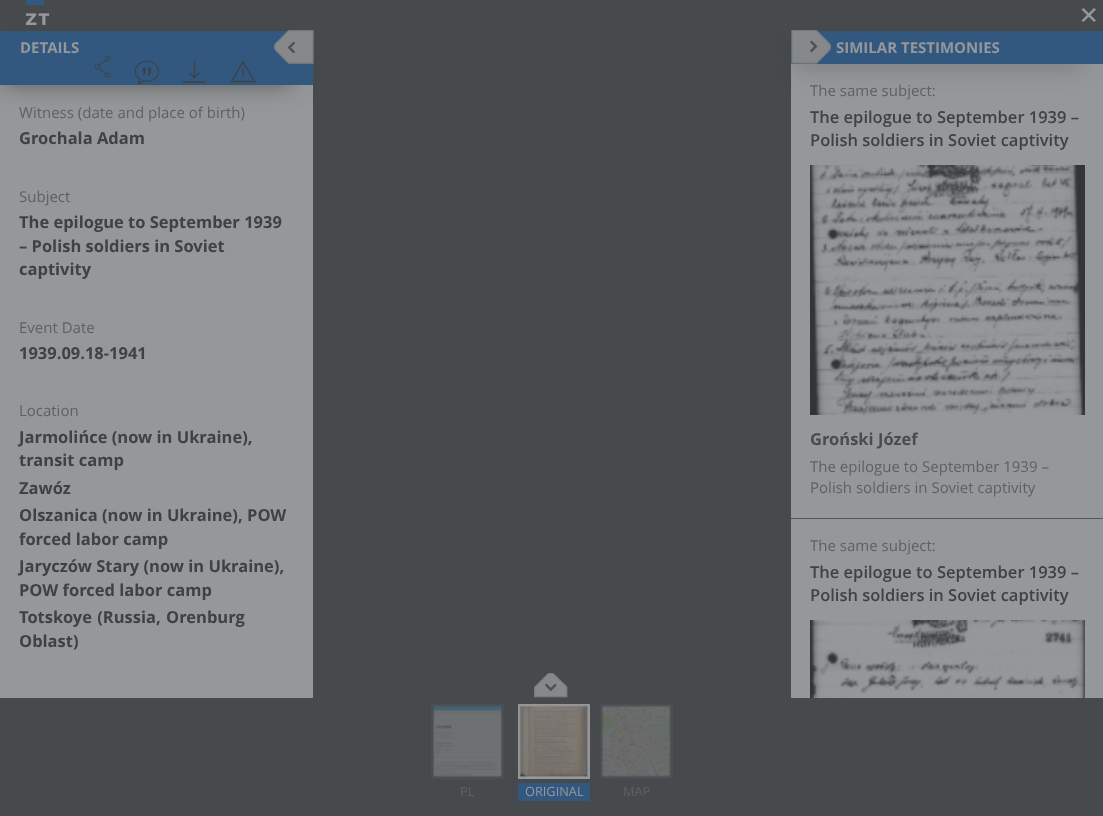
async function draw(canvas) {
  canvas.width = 1103;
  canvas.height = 816;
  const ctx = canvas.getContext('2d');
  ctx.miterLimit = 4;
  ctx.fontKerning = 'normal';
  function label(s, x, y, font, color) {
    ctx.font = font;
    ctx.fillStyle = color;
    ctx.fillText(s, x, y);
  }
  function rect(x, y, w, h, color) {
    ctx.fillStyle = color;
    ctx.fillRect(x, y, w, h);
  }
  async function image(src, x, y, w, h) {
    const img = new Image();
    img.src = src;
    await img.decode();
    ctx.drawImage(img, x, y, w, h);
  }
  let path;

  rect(0, 0, 1103, 816, '#464a4d');
  await image('assets/img1.png', 25, 0, 25, 25);
  ctx.fillStyle = '#95989a';
  path = new Path2D('M1081.5 20.5L1094 8L1096 9.5L1083.5 22Z');
  ctx.fill(path);
  path = new Path2D('M1083.5 8L1096 20.5L1094 22L1081.5 9.5Z');
  ctx.fill(path);
  rect(0, 85, 313, 613, '#95989a');
  ctx.fillStyle = '#323436a6';
  ctx.filter = 'blur(12.5px)';
  ctx.beginPath();
  ctx.rect(4, 55, 287, 29);
  ctx.fill();
  ctx.filter = 'none';
  rect(0, 31, 313, 54, '#325880');
  label('DETAILS', 20, 53, 'bold 15px Open Sans', '#95989a');
  await image('assets/img2.png', 94, 56, 17, 22);
  await image('assets/img3.png', 134, 60, 25, 24);
  path = new Path2D('M183 82H205.5M194.5 61V77.5M194.5 77.5L189.5 73L194.5 77.5L199.5 73');
  ctx.strokeStyle = '#3f4143';
  ctx.lineWidth = 1.5;
  ctx.stroke(path);
  path = new Path2D('M243 81.5H231.5L243 62L254.5 81.5ZM243 69V75.5');
  ctx.lineWidth = 1.4;
  ctx.stroke(path);
  ctx.fillStyle = '#3f4143';
  ctx.beginPath();
  ctx.arc(243.1, 78, 0.7, 0, 2 * Math.PI);
  ctx.fill();
  await image('assets/img4.png', 274, 30, 40, 34);
  label('Witness (date and place of birth)', 19, 118, '15px Open Sans', '#5e6062');
  label('Grochala Adam', 19, 144, 'bold 16.5px Open Sans', '#3f4143');
  label('Subject', 19, 202, '15px Open Sans', '#5e6062');
  label('The epilogue to September 1939', 19, 228, 'bold 16.5px Open Sans', '#3f4143');
  label('– Polish soldiers in Soviet', 19, 252, 'bold 16.5px Open Sans', '#3f4143');
  label('captivity', 19, 275, 'bold 16.5px Open Sans', '#3f4143');
  label('Event Date', 19, 333, '15px Open Sans', '#5e6062');
  label('1939.09.18-1941', 19, 359, 'bold 16.5px Open Sans', '#3f4143');
  label('Location', 19, 416, '15px Open Sans', '#5e6062');
  label('Jarmolińce (now in Ukraine),', 19, 443, 'bold 16.5px Open Sans', '#3f4143');
  label('transit camp', 19, 466, 'bold 16.5px Open Sans', '#3f4143');
  label('Zawóz', 19, 494, 'bold 16.5px Open Sans', '#3f4143');
  label('Olszanica (now in Ukraine), POW', 19, 521, 'bold 16.5px Open Sans', '#3f4143');
  label('forced labor camp', 19, 545, 'bold 16.5px Open Sans', '#3f4143');
  label('Jaryczów Stary (now in Ukraine),', 19, 572, 'bold 16.5px Open Sans', '#3f4143');
  label('POW forced labor camp', 19, 596, 'bold 16.5px Open Sans', '#3f4143');
  ctx.wordSpacing = '1px';
  label('Totskoye (Russia, Orenburg', 19, 623, 'bold 16.5px Open Sans', '#3f4143');
  ctx.wordSpacing = '0px';
  label('Oblast)', 19, 647, 'bold 16.5px Open Sans', '#3f4143');
  rect(791, 64, 312, 634, '#95989a');
  ctx.fillStyle = '#323436a6';
  ctx.filter = 'blur(12.5px)';
  ctx.beginPath();
  ctx.rect(795, 55, 288, 8);
  ctx.fill();
  ctx.filter = 'none';
  rect(791, 31, 312, 33, '#325880');
  await image('assets/img5.png', 791, 30, 40, 34);
  label('SIMILAR TESTIMONIES', 836, 53, 'bold 15px Open Sans', '#95989a');
  rect(791, 518, 312, 1, '#535657');
  label('The same subject:', 810, 96, '15px Open Sans', '#5e6062');
  label('The epilogue to September 1939 –', 810, 123, '600 16.5px Open Sans', '#3f4143');
  label('Polish soldiers in Soviet captivity', 810, 146, '600 16.5px Open Sans', '#3f4143');
  await image('assets/img6.png', 810, 165, 275, 250);
  label('Groński Józef', 810, 445, 'bold 16.5px Open Sans', '#494b4d');
  label('The epilogue to September 1939 –', 810, 472, '15px Open Sans', '#5e6062');
  label('Polish soldiers in Soviet captivity', 810, 493, '15px Open Sans', '#5e6062');
  label('The same subject:', 810, 551, '15px Open Sans', '#5e6062');
  label('The epilogue to September 1939 –', 810, 578, '600 16.5px Open Sans', '#3f4143');
  label('Polish soldiers in Soviet captivity', 810, 601, '600 16.5px Open Sans', '#3f4143');
  await image('assets/img7.png', 810, 620, 275, 78);
  await image('assets/img8.png', 534, 673, 34, 25);
  ctx.strokeStyle = '#4b4f52';
  ctx.lineWidth = 3;
  ctx.strokeRect(432.5, 705.5, 70, 72);
  await image('assets/img9.png', 433, 705, 69, 72);
  label('PL', 460, 796, '12.75px Open Sans', '#5e6062');
  ctx.strokeStyle = '#95989a';
  ctx.strokeRect(519.5, 705.5, 69, 72);
  await image('assets/img10.png', 519, 705, 70, 72);
  rect(518, 783, 72, 18, '#325880');
  label('ORIGINAL', 525, 796, '12.75px Open Sans', '#95989a');
  ctx.strokeStyle = '#4b4f52';
  ctx.strokeRect(601.5, 705.5, 70, 72);
  await image('assets/img11.png', 602, 705, 69, 72);
  label('MAP', 623, 796, '12.75px Open Sans', '#5e6062');
}

draw(document.querySelector('canvas'));
